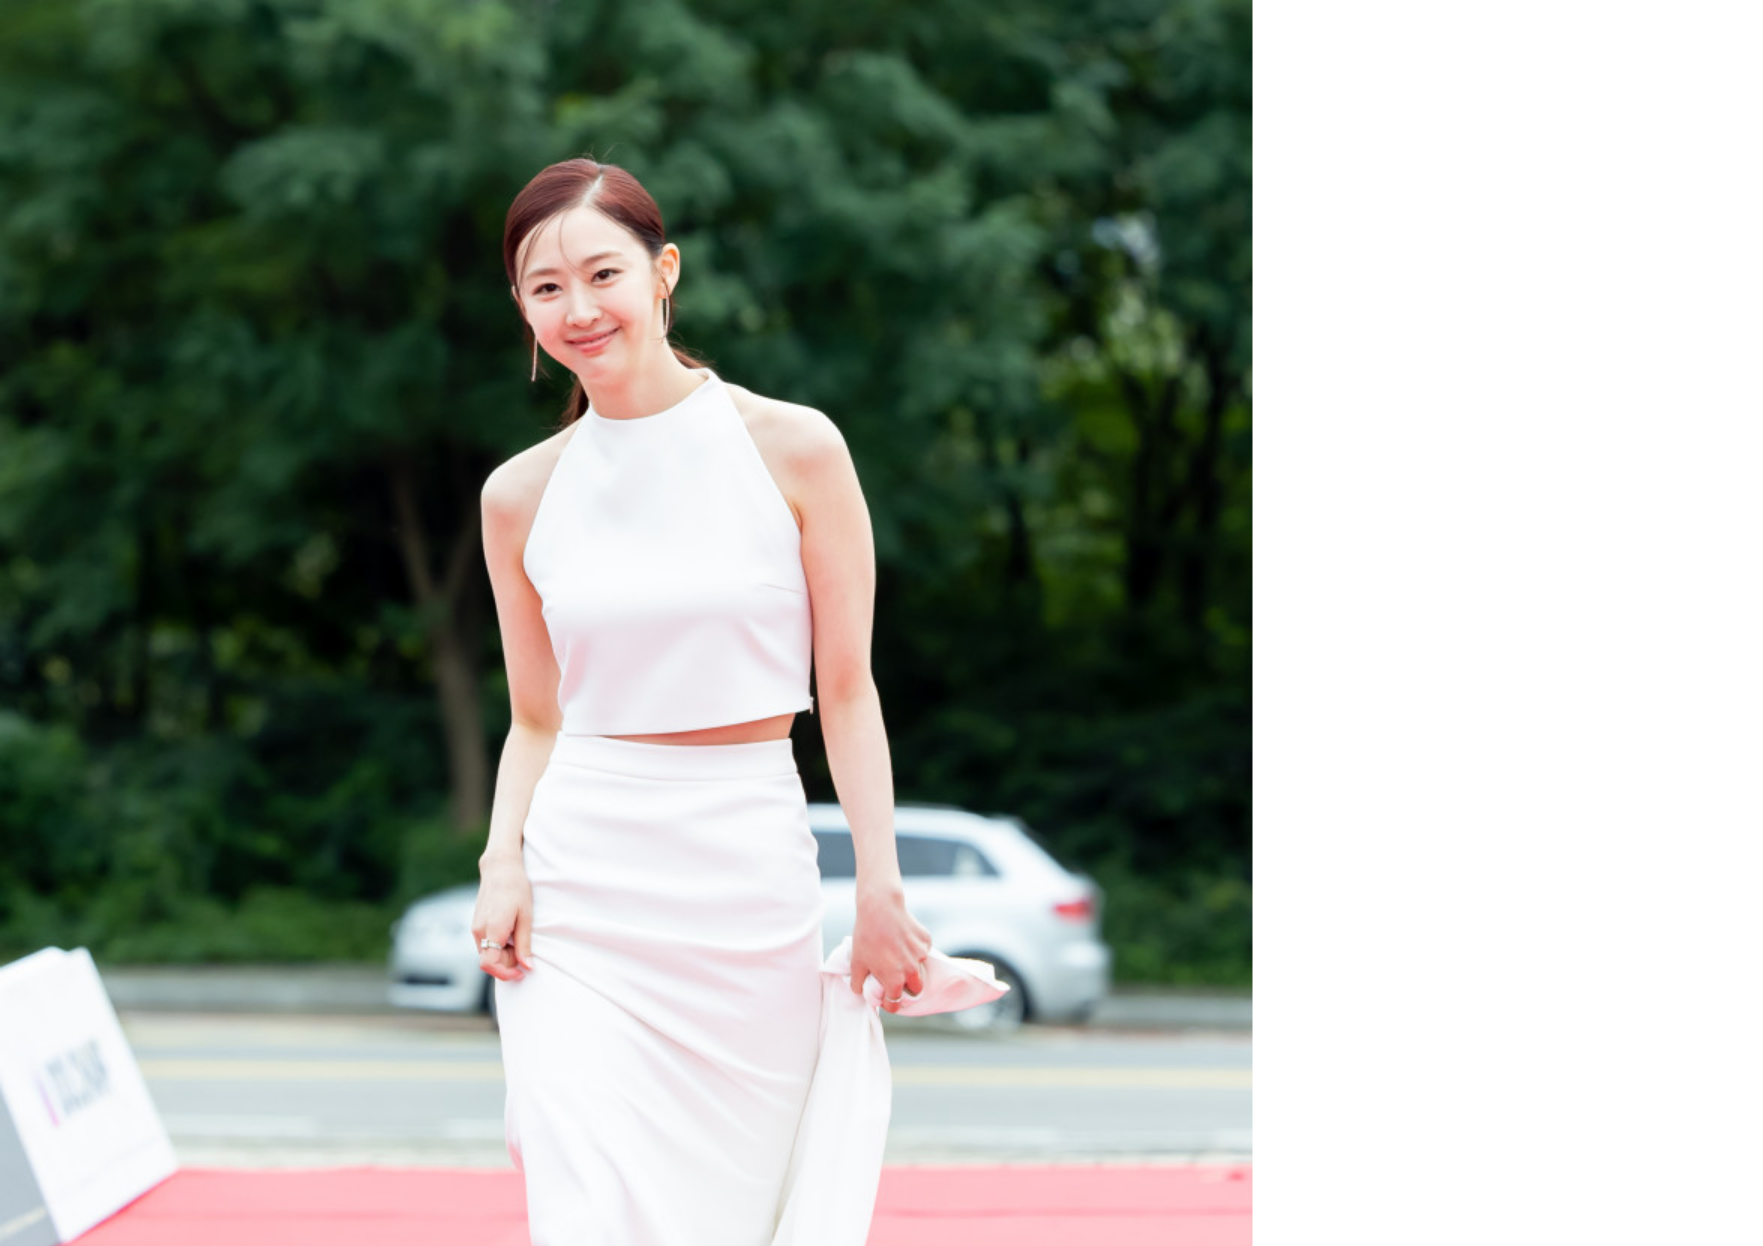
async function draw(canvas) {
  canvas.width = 1763;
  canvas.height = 1246;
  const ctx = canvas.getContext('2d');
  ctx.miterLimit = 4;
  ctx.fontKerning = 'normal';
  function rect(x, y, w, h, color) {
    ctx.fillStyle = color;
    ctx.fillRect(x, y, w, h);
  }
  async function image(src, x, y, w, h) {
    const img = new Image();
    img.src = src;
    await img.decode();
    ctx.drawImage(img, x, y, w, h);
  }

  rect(0, 0, 1763, 1246, '#fff');
  await image('assets/img1.png', 0, 0, 1253, 1246);
}

draw(document.querySelector('canvas'));
